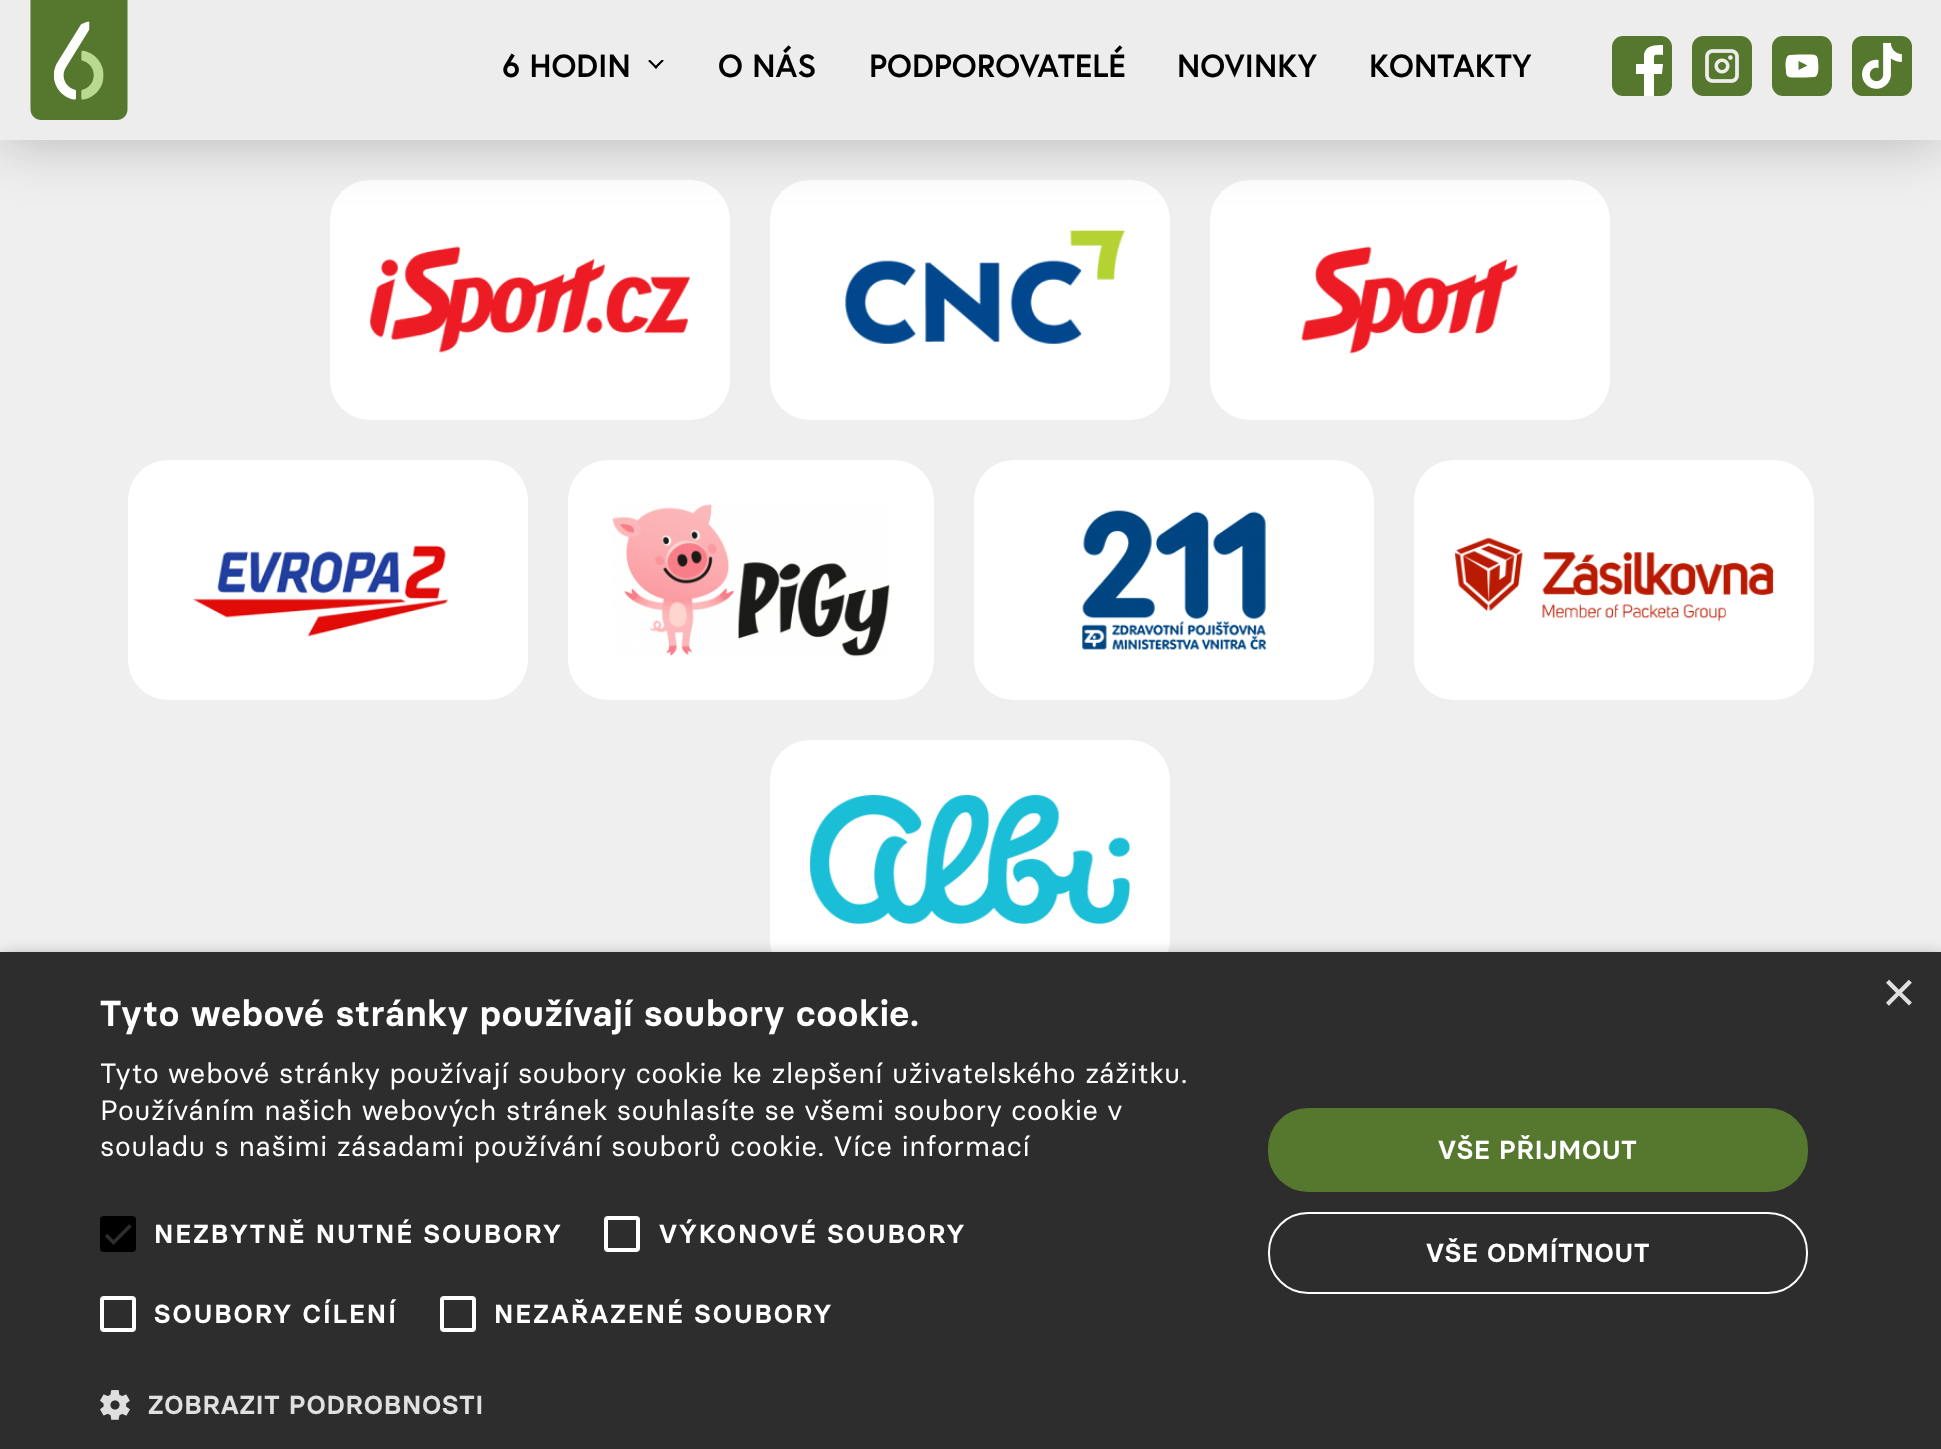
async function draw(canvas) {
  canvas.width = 1941;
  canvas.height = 1449;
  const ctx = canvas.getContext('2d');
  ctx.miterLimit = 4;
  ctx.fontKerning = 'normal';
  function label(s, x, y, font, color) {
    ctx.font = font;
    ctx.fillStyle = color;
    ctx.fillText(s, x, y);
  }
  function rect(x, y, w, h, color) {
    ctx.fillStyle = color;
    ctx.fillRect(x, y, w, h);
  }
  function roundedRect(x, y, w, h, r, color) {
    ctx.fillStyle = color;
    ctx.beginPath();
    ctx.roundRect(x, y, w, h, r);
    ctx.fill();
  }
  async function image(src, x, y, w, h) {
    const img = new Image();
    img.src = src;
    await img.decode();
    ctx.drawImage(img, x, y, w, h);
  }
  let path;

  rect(0, 0, 1941, 1449, '#efefef');
  roundedRect(330, 180, 400, 240, 40, '#fff');
  roundedRect(770, 180, 400, 240, 40, '#fff');
  await image('assets/img6.png', 845, 230, 281, 114);
  roundedRect(1210, 180, 400, 240, 40, '#fff');
  ctx.fillStyle = '#00000040';
  ctx.filter = 'blur(30px)';
  ctx.beginPath();
  ctx.rect(0, 0, 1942, 140);
  ctx.fill();
  ctx.filter = 'none';
  rect(0, 0, 1941, 140, '#ededed');
  await image('assets/img1.png', 30, 0, 98, 120);
  label('6 HODIN', 502, 77, 'bold 32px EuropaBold', '#000');
  await image('assets/img2.png', 648, 60, 16, 9);
  label('O NÁS', 718, 77, 'bold 32px EuropaBold', '#000');
  label('PODPOROVATELÉ', 869, 77, 'bold 32px EuropaBold', '#000');
  label('NOVINKY', 1177, 77, 'bold 32px EuropaBold', '#000');
  label('KONTAKTY', 1369, 77, 'bold 32px EuropaBold', '#000');
  roundedRect(1612, 36, 60, 60, 11, '#55782e');
  ctx.fillStyle = '#fff';
  path = new Path2D('M1663 64H1654C1654 53 1653 55 1663 55V45C1655 45 1646 45 1644 54V64H1636V74H1644V96H1654V74H1662Z');
  ctx.fill(path);
  await image('assets/img3.png', 1692, 36, 60, 60);
  roundedRect(1772, 36, 60, 60, 11, '#55782e');
  ctx.fillStyle = '#fff';
  path = new Path2D('M1818 61.5C1818 55.5 1816 54.5 1810.5 54.5H1799L1789.5 55C1784.5 56 1785.5 67 1786 70.5C1786 76.5 1787.5 77.5 1793.5 77.5H1805L1814.5 77C1819.5 76 1818.5 65 1818 61.5ZM1798.5 70V61L1807.5 65.5Z');
  ctx.fill(path, 'evenodd');
  await image('assets/img4.png', 1852, 36, 60, 60);
  await image('assets/img5.png', 370, 246, 320, 107);
  await image('assets/img7.png', 1301, 246, 217, 108);
  roundedRect(128, 460, 400, 240, 40, '#fff');
  await image('assets/img8.png', 193, 545, 256, 92);
  roundedRect(568, 460, 366, 240, 40, '#fff');
  await image('assets/img9.png', 612, 504, 278, 153);
  roundedRect(974, 460, 400, 240, 40, '#fff');
  await image('assets/img10.png', 1082, 510, 184, 140);
  roundedRect(1414, 460, 400, 240, 40, '#fff');
  await image('assets/img11.png', 1454, 537, 320, 85);
  roundedRect(770, 740, 400, 240, 40, '#fff');
  await image('assets/img12.png', 810, 794, 320, 131);
  ctx.fillStyle = '#00000059';
  ctx.filter = 'blur(8px)';
  ctx.beginPath();
  ctx.rect(2, 956, 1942, 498);
  ctx.fill();
  ctx.filter = 'none';
  rect(0, 952, 1941, 497, '#2d2d2d');
  label('×', 1882, 1012, '58px Liberation Sans', '#e0e0e0');
  ctx.letterSpacing = '0.8px';
  label('Tyto webové stránky používají soubory cookie.', 100, 1026, '600 36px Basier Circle', '#fff');
  ctx.letterSpacing = '0.6px';
  label('Tyto webové stránky používají soubory cookie ke zlepšení uživatelského zážitku.', 100, 1083, '28px Basier Circle', '#fff');
  label('Používáním našich webových stránek souhlasíte se všemi soubory cookie v', 100, 1120, '28px Basier Circle', '#fff');
  label('souladu s našimi zásadami používání souborů cookie. Více informací', 100, 1156, '28px Basier Circle', '#fff');
  roundedRect(100, 1216, 36, 36, 4, '#000');
  path = new Path2D('M106 1235L113.5 1242.5L130.5 1225.5');
  ctx.strokeStyle = '#2d2d2d';
  ctx.lineWidth = 3.6;
  ctx.stroke(path);
  ctx.letterSpacing = '2px';
  label('NEZBYTNĚ NUTNÉ SOUBORY', 154, 1243, '600 26px Basier Circle', '#fff');
  ctx.beginPath();
  ctx.roundRect(606, 1218, 32, 32, 2);
  ctx.strokeStyle = '#fff';
  ctx.lineWidth = 4;
  ctx.stroke();
  label('VÝKONOVÉ SOUBORY', 659, 1243, '600 26px Basier Circle', '#fff');
  ctx.beginPath();
  ctx.roundRect(102, 1298, 32, 32, 2);
  ctx.stroke();
  label('SOUBORY CÍLENÍ', 154, 1323, '600 26px Basier Circle', '#fff');
  ctx.beginPath();
  ctx.roundRect(442, 1298, 32, 32, 2);
  ctx.stroke();
  label('NEZAŘAZENÉ SOUBORY', 494, 1323, '600 26px Basier Circle', '#fff');
  await image('assets/img13.png', 100, 1390, 30, 30);
  ctx.letterSpacing = '0.8px';
  label('ZOBRAZIT PODROBNOSTI', 148, 1414, '600 26px Basier Circle', '#e0e0e0');
  roundedRect(1268, 1108, 540, 84, 40, '#55782e');
  label('VŠE PŘIJMOUT', 1438, 1159, '600 26px Basier Circle', '#fff');
  ctx.beginPath();
  ctx.roundRect(1269, 1213, 538, 80, 39);
  ctx.lineWidth = 2;
  ctx.stroke();
  label('VŠE ODMÍTNOUT', 1426, 1262, '600 26px Basier Circle', '#fff');
}

draw(document.querySelector('canvas'));
